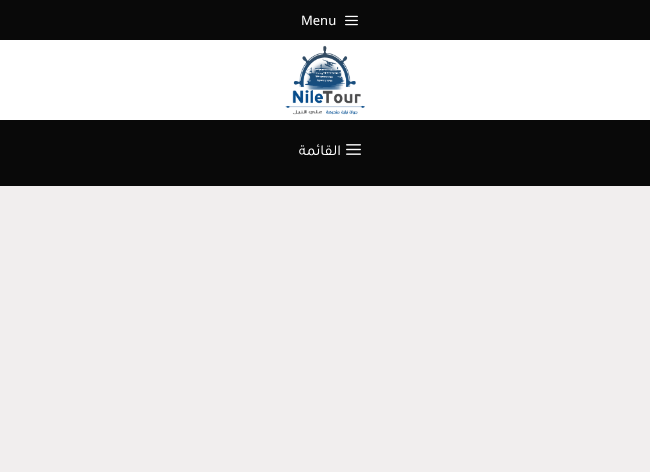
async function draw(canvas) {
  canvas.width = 650;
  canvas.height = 472;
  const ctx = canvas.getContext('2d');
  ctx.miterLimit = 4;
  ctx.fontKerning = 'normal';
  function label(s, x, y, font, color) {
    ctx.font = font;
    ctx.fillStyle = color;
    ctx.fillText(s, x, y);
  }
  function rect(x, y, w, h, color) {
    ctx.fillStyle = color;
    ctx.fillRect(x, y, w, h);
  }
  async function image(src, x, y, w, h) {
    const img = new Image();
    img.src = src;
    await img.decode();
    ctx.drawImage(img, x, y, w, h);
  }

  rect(0, 0, 650, 472, '#f1eeee');
  rect(0, 0, 650, 40, '#090909');
  await image('assets/img1.png', 345, 15, 13, 11);
  label('Menu', 301, 25, '13px Noto Sans', '#fff');
  rect(0, 40, 650, 80, '#fff');
  await image('assets/img2.png', 285, 45, 80, 70);
  rect(0, 120, 650, 66, '#090909');
  await image('assets/img3.png', 346, 144, 15, 11);
  ctx.direction = 'rtl';
  label('القائمة', 341, 155, '15px Tajawal', '#fff');
}

draw(document.querySelector('canvas'));
